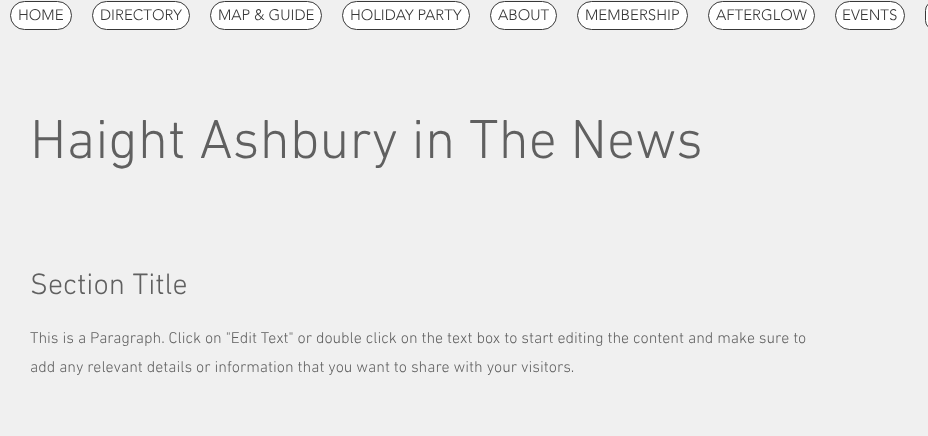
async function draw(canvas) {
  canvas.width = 928;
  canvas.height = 436;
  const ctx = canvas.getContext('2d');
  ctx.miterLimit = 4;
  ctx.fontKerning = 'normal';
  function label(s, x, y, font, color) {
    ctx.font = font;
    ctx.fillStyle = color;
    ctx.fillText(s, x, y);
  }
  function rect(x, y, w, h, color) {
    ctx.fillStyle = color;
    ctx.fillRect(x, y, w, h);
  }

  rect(0, 0, 928, 436, '#f0f0f0');
  ctx.fillStyle = '#fff';
  ctx.beginPath();
  ctx.roundRect(10.5, 1.5, 61, 28, 14);
  ctx.fill();
  ctx.strokeStyle = '#383838';
  ctx.stroke();
  label('HOME', 18, 20, '300 15px "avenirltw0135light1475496"', '#383838');
  ctx.fillStyle = '#fff';
  ctx.beginPath();
  ctx.roundRect(92.5, 1.5, 97, 28, 14);
  ctx.fill();
  ctx.stroke();
  label('DIRECTORY', 100, 20, '300 15px "avenirltw0135light1475496"', '#383838');
  ctx.fillStyle = '#fff';
  ctx.beginPath();
  ctx.roundRect(210.5, 1.5, 111, 28, 14);
  ctx.fill();
  ctx.stroke();
  label('MAP & GUIDE', 218, 20, '300 15px "avenirltw0135light1475496"', '#383838');
  ctx.fillStyle = '#fff';
  ctx.beginPath();
  ctx.roundRect(342.5, 1.5, 127, 28, 14);
  ctx.fill();
  ctx.stroke();
  label('HOLIDAY PARTY', 350, 20, '300 15px "avenirltw0135light1475496"', '#383838');
  ctx.fillStyle = '#fff';
  ctx.beginPath();
  ctx.roundRect(490.5, 1.5, 66, 28, 14);
  ctx.fill();
  ctx.stroke();
  label('ABOUT', 498, 20, '300 15px "avenirltw0135light1475496"', '#383838');
  ctx.fillStyle = '#fff';
  ctx.beginPath();
  ctx.roundRect(577.5, 1.5, 110, 28, 14);
  ctx.fill();
  ctx.stroke();
  label('MEMBERSHIP', 585, 20, '300 15px "avenirltw0135light1475496"', '#383838');
  ctx.fillStyle = '#fff';
  ctx.beginPath();
  ctx.roundRect(708.5, 1.5, 106, 28, 14);
  ctx.fill();
  ctx.stroke();
  label('AFTERGLOW', 716, 20, '300 15px "avenirltw0135light1475496"', '#383838');
  ctx.fillStyle = '#fff';
  ctx.beginPath();
  ctx.roundRect(835.5, 1.5, 69, 28, 14);
  ctx.fill();
  ctx.stroke();
  label('EVENTS', 842, 20, '300 15px "avenirltw0135light1475496"', '#383838');
  ctx.fillStyle = '#fff';
  ctx.beginPath();
  ctx.roundRect(925.5, 1.5, 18, 28, 14);
  ctx.fill();
  ctx.stroke();
  label('Haight Ashbury in The News', 30, 158, '300 56px "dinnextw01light"', '#606060');
  label('Section Title', 30, 294, '300 30px "dinnextw01light"', '#606060');
  label('This is a Paragraph. Click on "Edit Text" or double click on the text box to start editing the content and make sure to', 30, 343, '300 16px "dinnextw01light"', '#606060');
  label('add any relevant details or information that you want to share with your visitors.', 30, 372, '300 16px "dinnextw01light"', '#606060');
}

draw(document.querySelector('canvas'));
